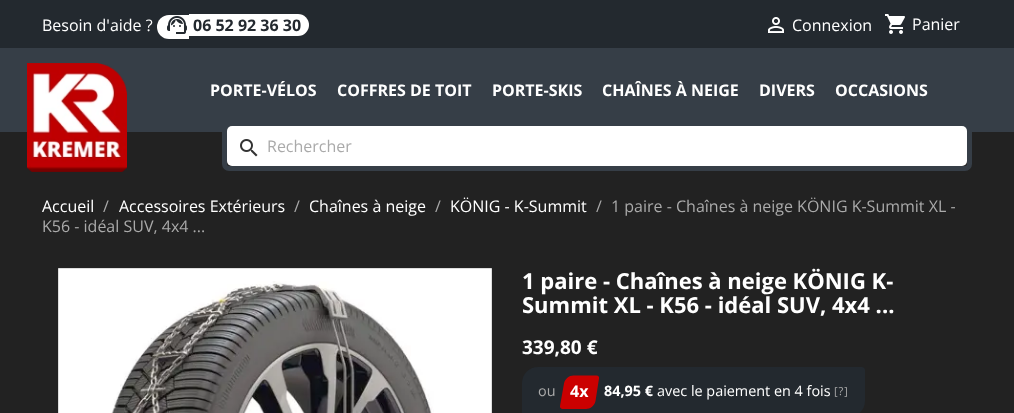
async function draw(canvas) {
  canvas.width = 1014;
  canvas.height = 413;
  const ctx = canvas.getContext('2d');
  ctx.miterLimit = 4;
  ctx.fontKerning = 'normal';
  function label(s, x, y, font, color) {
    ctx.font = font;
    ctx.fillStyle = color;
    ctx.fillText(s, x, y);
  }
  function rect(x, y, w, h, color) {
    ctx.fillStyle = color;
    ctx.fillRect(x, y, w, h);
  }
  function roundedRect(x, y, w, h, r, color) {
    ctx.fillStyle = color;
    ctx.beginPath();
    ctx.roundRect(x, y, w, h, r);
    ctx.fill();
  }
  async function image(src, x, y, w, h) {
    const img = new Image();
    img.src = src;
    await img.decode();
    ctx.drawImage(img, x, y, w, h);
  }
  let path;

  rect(0, 0, 1014, 413, '#222');
  rect(0, 0, 1014, 48, '#23292f');
  label('Besoin d\'aide ?', 42, 31, '16px Open Sans', '#fff');
  ctx.beginPath();
  ctx.roundRect(157, 15, 32, 24, [12, 0, 0, 12]);
  ctx.fill();
  ctx.beginPath();
  ctx.roundRect(189, 14, 120, 22, [0, 11, 11, 0]);
  ctx.fill();
  await image('assets/img1.png', 167, 16, 20, 18);
  label('06 52 92 36 30', 193, 31, 'bold 16px Open Sans', '#23292f');
  await image('assets/img2.png', 768, 17, 16, 16);
  label('Connexion', 792, 31, '16px Open Sans', '#fff');
  await image('assets/img3.png', 885, 14, 20, 20);
  label('Panier', 912, 30, '16px Open Sans', '#fff');
  rect(0, 48, 1014, 84, '#363e47');
  await image('assets/img4.png', 27, 63, 100, 109);
  label('PORTE-VÉLOS', 210, 96, 'bold 16px Open Sans', '#fff');
  label('COFFRES DE TOIT', 337, 96, 'bold 16px Open Sans', '#fff');
  label('PORTE-SKIS', 492, 96, 'bold 16px Open Sans', '#fff');
  label('CHAÎNES À NEIGE', 602, 96, 'bold 16px Open Sans', '#fff');
  label('DIVERS', 759, 96, 'bold 16px Open Sans', '#fff');
  label('OCCASIONS', 835, 96, 'bold 16px Open Sans', '#fff');
  ctx.beginPath();
  ctx.roundRect(224.5, 123.5, 745, 45, [0, 0, 4.5, 4.5]);
  ctx.strokeStyle = '#363e47';
  ctx.lineWidth = 5;
  ctx.stroke();
  roundedRect(227, 126, 740, 40, 5, '#fff');
  await image('assets/img5.png', 240, 139, 18, 18);
  label('Rechercher', 267, 152, '16px Open Sans', '#aaa');
  label('Accueil', 42, 212, '16px Open Sans', '#fff');
  label('/', 103, 212, '16px Open Sans', '#aaa');
  label('Accessoires Extérieurs', 119, 212, '16px Open Sans', '#fff');
  label('/', 294, 212, '16px Open Sans', '#aaa');
  label('Chaînes à neige', 309, 212, '16px Open Sans', '#fff');
  label('/', 435, 212, '16px Open Sans', '#aaa');
  label('KÖNIG - K-Summit', 450, 212, '16px Open Sans', '#fff');
  label('/', 596, 212, '16px Open Sans', '#aaa');
  label('1 paire - Chaînes à neige KÖNIG K-Summit XL -', 611, 212, '16px Open Sans', '#aaa');
  label('K56 - idéal SUV, 4x4 ...', 42, 232, '16px Open Sans', '#aaa');
  ctx.fillStyle = '#fff';
  ctx.beginPath();
  ctx.rect(58.5, 268.5, 433, 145);
  ctx.fill();
  ctx.strokeStyle = '#dedede';
  ctx.lineWidth = 1;
  ctx.stroke();
  await image('assets/img6.png', 111, 281, 323, 132);
  label('1 paire - Chaînes à neige KÖNIG K-', 522, 289, 'bold 22px Open Sans', '#fff');
  label('Summit XL - K56 - idéal SUV, 4x4 ...', 522, 313, 'bold 22px Open Sans', '#fff');
  label('339,80 €', 522, 354, 'bold 19px Open Sans', '#fff');
  ctx.fillStyle = '#23292f';
  path = new Path2D('M538 367H862C863.5 367 865 368.5 865 370V401C865 410 858 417 849 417H525C523.5 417 522 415.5 522 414V383C522 374 529 367 538 367Z');
  ctx.fill(path);
  label('ou', 538, 396, '14.4px Open Sans', '#aaa');
  ctx.fillStyle = '#cb0000';
  path = new Path2D('M573.5 375.5H596.5C598.5 375.5 599.5 377 599 378.5L595.5 401C594.5 405.5 590.5 409 586 409H562.5C561 409 559.5 407.5 560 406L564 383.5C565 379 569 375.5 573.5 375.5Z');
  ctx.fill(path);
  label('4x', 570, 397, 'bold 16px Open Sans', '#fff');
  label('84,95 €', 604, 396, 'bold 14.4px Open Sans', '#fff');
  label('avec le paiement en 4 fois', 657, 396, '14.4px Open Sans', '#fff');
  ctx.letterSpacing = '1px';
  label('[?]', 834, 395, '11px Open Sans', '#aaa');
}

draw(document.querySelector('canvas'));
